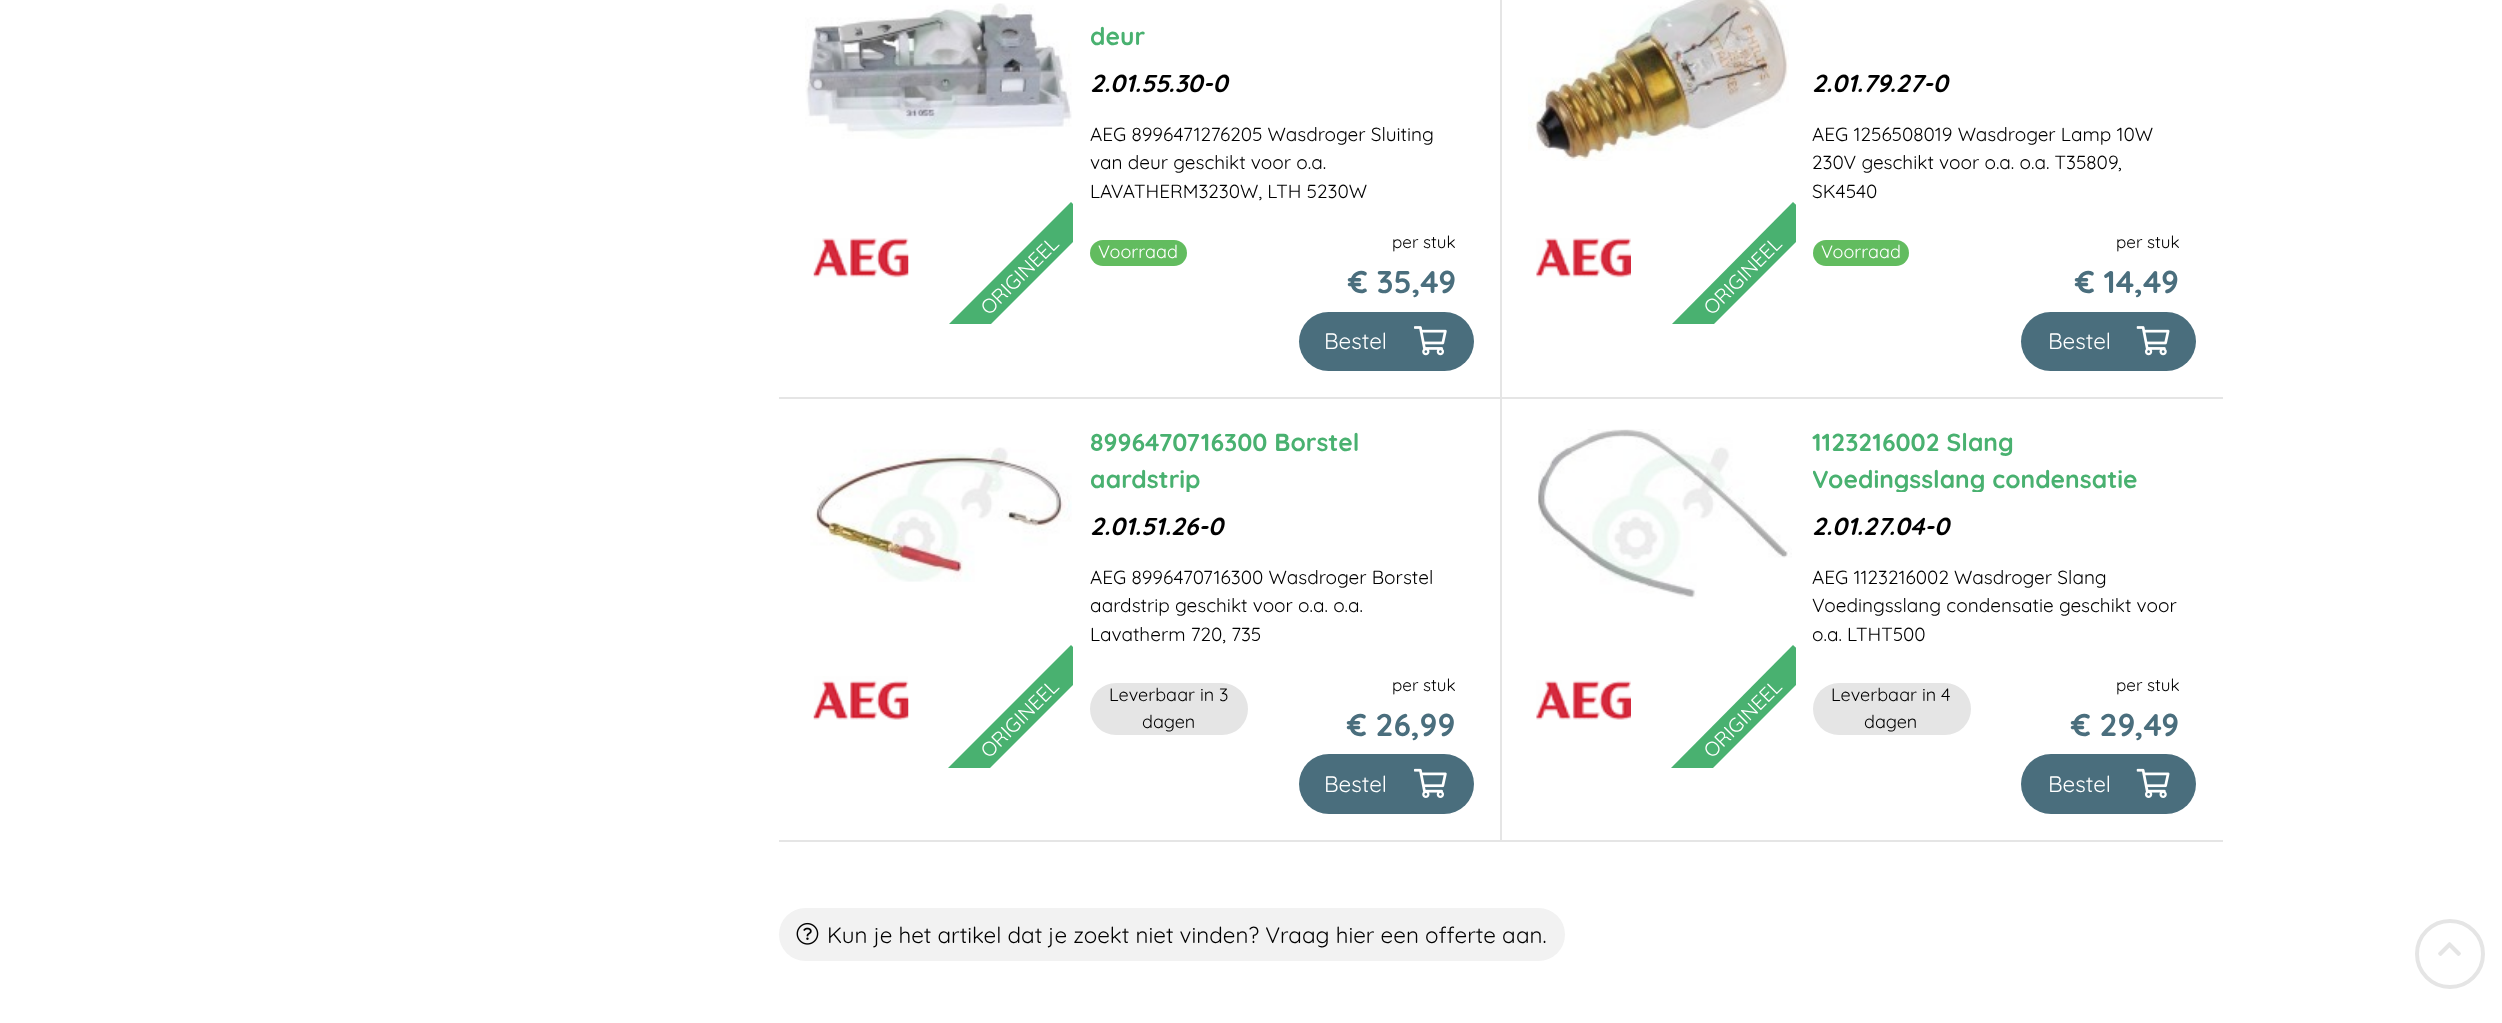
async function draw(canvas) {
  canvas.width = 2502;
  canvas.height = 1023;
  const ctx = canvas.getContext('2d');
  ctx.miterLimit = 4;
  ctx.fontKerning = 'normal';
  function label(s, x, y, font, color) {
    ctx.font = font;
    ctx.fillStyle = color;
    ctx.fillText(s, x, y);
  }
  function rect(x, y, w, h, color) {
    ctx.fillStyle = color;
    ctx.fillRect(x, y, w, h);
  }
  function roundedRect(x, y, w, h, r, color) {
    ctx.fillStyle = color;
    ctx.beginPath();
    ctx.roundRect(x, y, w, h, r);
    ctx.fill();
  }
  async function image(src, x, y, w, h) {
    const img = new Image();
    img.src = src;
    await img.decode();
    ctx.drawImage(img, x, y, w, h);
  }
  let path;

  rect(0, 0, 2502, 1023, '#fff');
  rect(1500, 0, 2, 842, '#e5e5e5');
  rect(779, 397, 1444, 2, '#e5e5e5');
  await image('assets/img1.png', 805, 3, 267, 136);
  await image('assets/img2.png', 813, 238, 96, 40);
  ctx.save();
  ctx.beginPath();
  ctx.rect(805, 0, 268, 324);
  ctx.clip();
  ctx.fillStyle = '#49b170';
  path = new Path2D('M947 326L1071 202L1092 223L968 347Z');
  ctx.fill(path);
  ctx.restore();
  ctx.font = '20px Quicksand';
  ctx.fillStyle = '#fff';
  ctx.save();
  ctx.translate(989, 316);
  ctx.rotate(-45 * Math.PI / 180);
  ctx.fillText('ORIGINEEL', 0, 0);
  ctx.restore();
  label('deur', 1090, 45, 'bold 24.6px Quicksand', '#49b170');
  label('2.01.55.30-0', 1090, 92, 'italic bold 24.6px Quicksand', '#000');
  label('AEG 8996471276205 Wasdroger Sluiting', 1090, 141, '19px Quicksand', '#000');
  label('van deur geschikt voor o.a.', 1090, 169, '19px Quicksand', '#000');
  label('LAVATHERM3230W, LTH 5230W', 1090, 198, '19px Quicksand', '#000');
  roundedRect(1090, 240, 97, 26, 13, '#62bc5f');
  label('Voorraad', 1098, 258, '18px Quicksand', '#fff');
  label('per stuk', 1392, 248, '17px Quicksand', '#000');
  label('€ 35,49', 1348, 293, 'bold 31.5px Quicksand', '#4a6e7d');
  roundedRect(1299, 312, 175, 59, 29.5, '#4a6e7d');
  label('Bestel', 1324, 349, '22.4px Quicksand', '#fff');
  await image('assets/img3.png', 1414, 326, 33, 30);
  await image('assets/img4.png', 1528, 0, 261, 161);
  await image('assets/img5.png', 1536, 238, 95, 40);
  ctx.save();
  ctx.beginPath();
  ctx.rect(1528, 0, 268, 324);
  ctx.clip();
  ctx.fillStyle = '#49b170';
  path = new Path2D('M1670 326L1793 202L1815 223L1691 347Z');
  ctx.fill(path);
  ctx.restore();
  ctx.font = '20px Quicksand';
  ctx.save();
  ctx.translate(1712, 316);
  ctx.rotate(-45 * Math.PI / 180);
  ctx.fillText('ORIGINEEL', 0, 0);
  ctx.restore();
  label('2.01.79.27-0', 1812, 92, 'italic bold 24.6px Quicksand', '#000');
  label('AEG 1256508019 Wasdroger Lamp 10W', 1812, 141, '19px Quicksand', '#000');
  label('230V geschikt voor o.a. o.a. T35809,', 1812, 169, '19px Quicksand', '#000');
  label('SK4540', 1812, 198, '19px Quicksand', '#000');
  roundedRect(1813, 240, 96, 26, 13, '#62bc5f');
  label('Voorraad', 1821, 258, '18px Quicksand', '#fff');
  label('per stuk', 2116, 248, '17px Quicksand', '#000');
  label('€ 14,49', 2075, 293, 'bold 31.5px Quicksand', '#4a6e7d');
  roundedRect(2021, 312, 175, 59, 29.5, '#4a6e7d');
  label('Bestel', 2048, 349, '22.4px Quicksand', '#fff');
  await image('assets/img6.png', 2136, 326, 34, 30);
  rect(779, 840, 1444, 2, '#e5e5e5');
  await image('assets/img7.png', 810, 447, 262, 135);
  await image('assets/img8.png', 813, 676, 96, 44);
  ctx.save();
  ctx.beginPath();
  ctx.rect(805, 425, 268, 343);
  ctx.clip();
  ctx.fillStyle = '#49b170';
  path = new Path2D('M947 769L1071 645L1092 666L968 790Z');
  ctx.fill(path);
  ctx.restore();
  ctx.font = '20px Quicksand';
  ctx.fillStyle = '#fff';
  ctx.save();
  ctx.translate(989, 759);
  ctx.rotate(-45 * Math.PI / 180);
  ctx.fillText('ORIGINEEL', 0, 0);
  ctx.restore();
  label('8996470716300 Borstel', 1090, 451, 'bold 24.6px Quicksand', '#49b170');
  ctx.save();
  ctx.beginPath();
  ctx.rect(1090, 425, 364, 67);
  ctx.clip();
  label('aardstrip', 1090, 488, 'bold 24.6px Quicksand', '#49b170');
  ctx.restore();
  label('2.01.51.26-0', 1090, 535, 'italic bold 24.6px Quicksand', '#000');
  label('AEG 8996470716300 Wasdroger Borstel', 1090, 584, '19px Quicksand', '#000');
  label('aardstrip geschikt voor o.a. o.a.', 1090, 612, '19px Quicksand', '#000');
  label('Lavatherm 720, 735', 1090, 641, '19px Quicksand', '#000');
  roundedRect(1090, 683, 158, 52, 26, '#e5e5e5');
  label('Leverbaar in 3', 1109, 701, '18px Quicksand', '#000');
  label('dagen', 1142, 728, '18px Quicksand', '#000');
  label('per stuk', 1392, 691, '17px Quicksand', '#000');
  label('€ 26,99', 1347, 736, 'bold 31.5px Quicksand', '#4a6e7d');
  roundedRect(1299, 754, 175, 60, 30, '#4a6e7d');
  label('Bestel', 1324, 792, '22.4px Quicksand', '#fff');
  await image('assets/img9.png', 1414, 768, 33, 30);
  await image('assets/img10.png', 1538, 429, 254, 170);
  await image('assets/img11.png', 1536, 680, 95, 40);
  ctx.save();
  ctx.beginPath();
  ctx.rect(1528, 425, 268, 343);
  ctx.clip();
  ctx.fillStyle = '#49b170';
  path = new Path2D('M1670 769L1793 645L1815 666L1691 790Z');
  ctx.fill(path);
  ctx.restore();
  ctx.font = '20px Quicksand';
  ctx.save();
  ctx.translate(1712, 759);
  ctx.rotate(-45 * Math.PI / 180);
  ctx.fillText('ORIGINEEL', 0, 0);
  ctx.restore();
  label('1123216002 Slang', 1812, 451, 'bold 24.6px Quicksand', '#49b170');
  ctx.save();
  ctx.beginPath();
  ctx.rect(1813, 425, 366, 67);
  ctx.clip();
  label('Voedingsslang condensatie', 1812, 488, 'bold 24.6px Quicksand', '#49b170');
  ctx.restore();
  label('2.01.27.04-0', 1812, 535, 'italic bold 24.6px Quicksand', '#000');
  label('AEG 1123216002 Wasdroger Slang', 1812, 584, '19px Quicksand', '#000');
  label('Voedingsslang condensatie geschikt voor', 1812, 612, '19px Quicksand', '#000');
  label('o.a. LTHT500', 1812, 641, '19px Quicksand', '#000');
  roundedRect(1813, 683, 158, 52, 26, '#e5e5e5');
  label('Leverbaar in 4', 1831, 701, '18px Quicksand', '#000');
  label('dagen', 1864, 728, '18px Quicksand', '#000');
  label('per stuk', 2116, 691, '17px Quicksand', '#000');
  label('€ 29,49', 2071, 736, 'bold 31.5px Quicksand', '#4a6e7d');
  roundedRect(2021, 754, 175, 60, 30, '#4a6e7d');
  label('Bestel', 2048, 792, '22.4px Quicksand', '#fff');
  await image('assets/img12.png', 2136, 768, 34, 30);
  roundedRect(779, 908, 786, 53, 26.5, '#f2f2f2');
  await image('assets/img13.png', 796, 922, 23, 23);
  label('Kun je het artikel dat je zoekt niet vinden? Vraag hier een offerte aan.', 827, 943, '22.4px Quicksand', '#000');
  ctx.beginPath();
  ctx.arc(2450, 954, 33, 0, 2 * Math.PI);
  ctx.strokeStyle = '#e5e5e5';
  ctx.lineWidth = 4;
  ctx.stroke();
  await image('assets/img14.png', 2438, 942, 23, 14);
}

draw(document.querySelector('canvas'));
